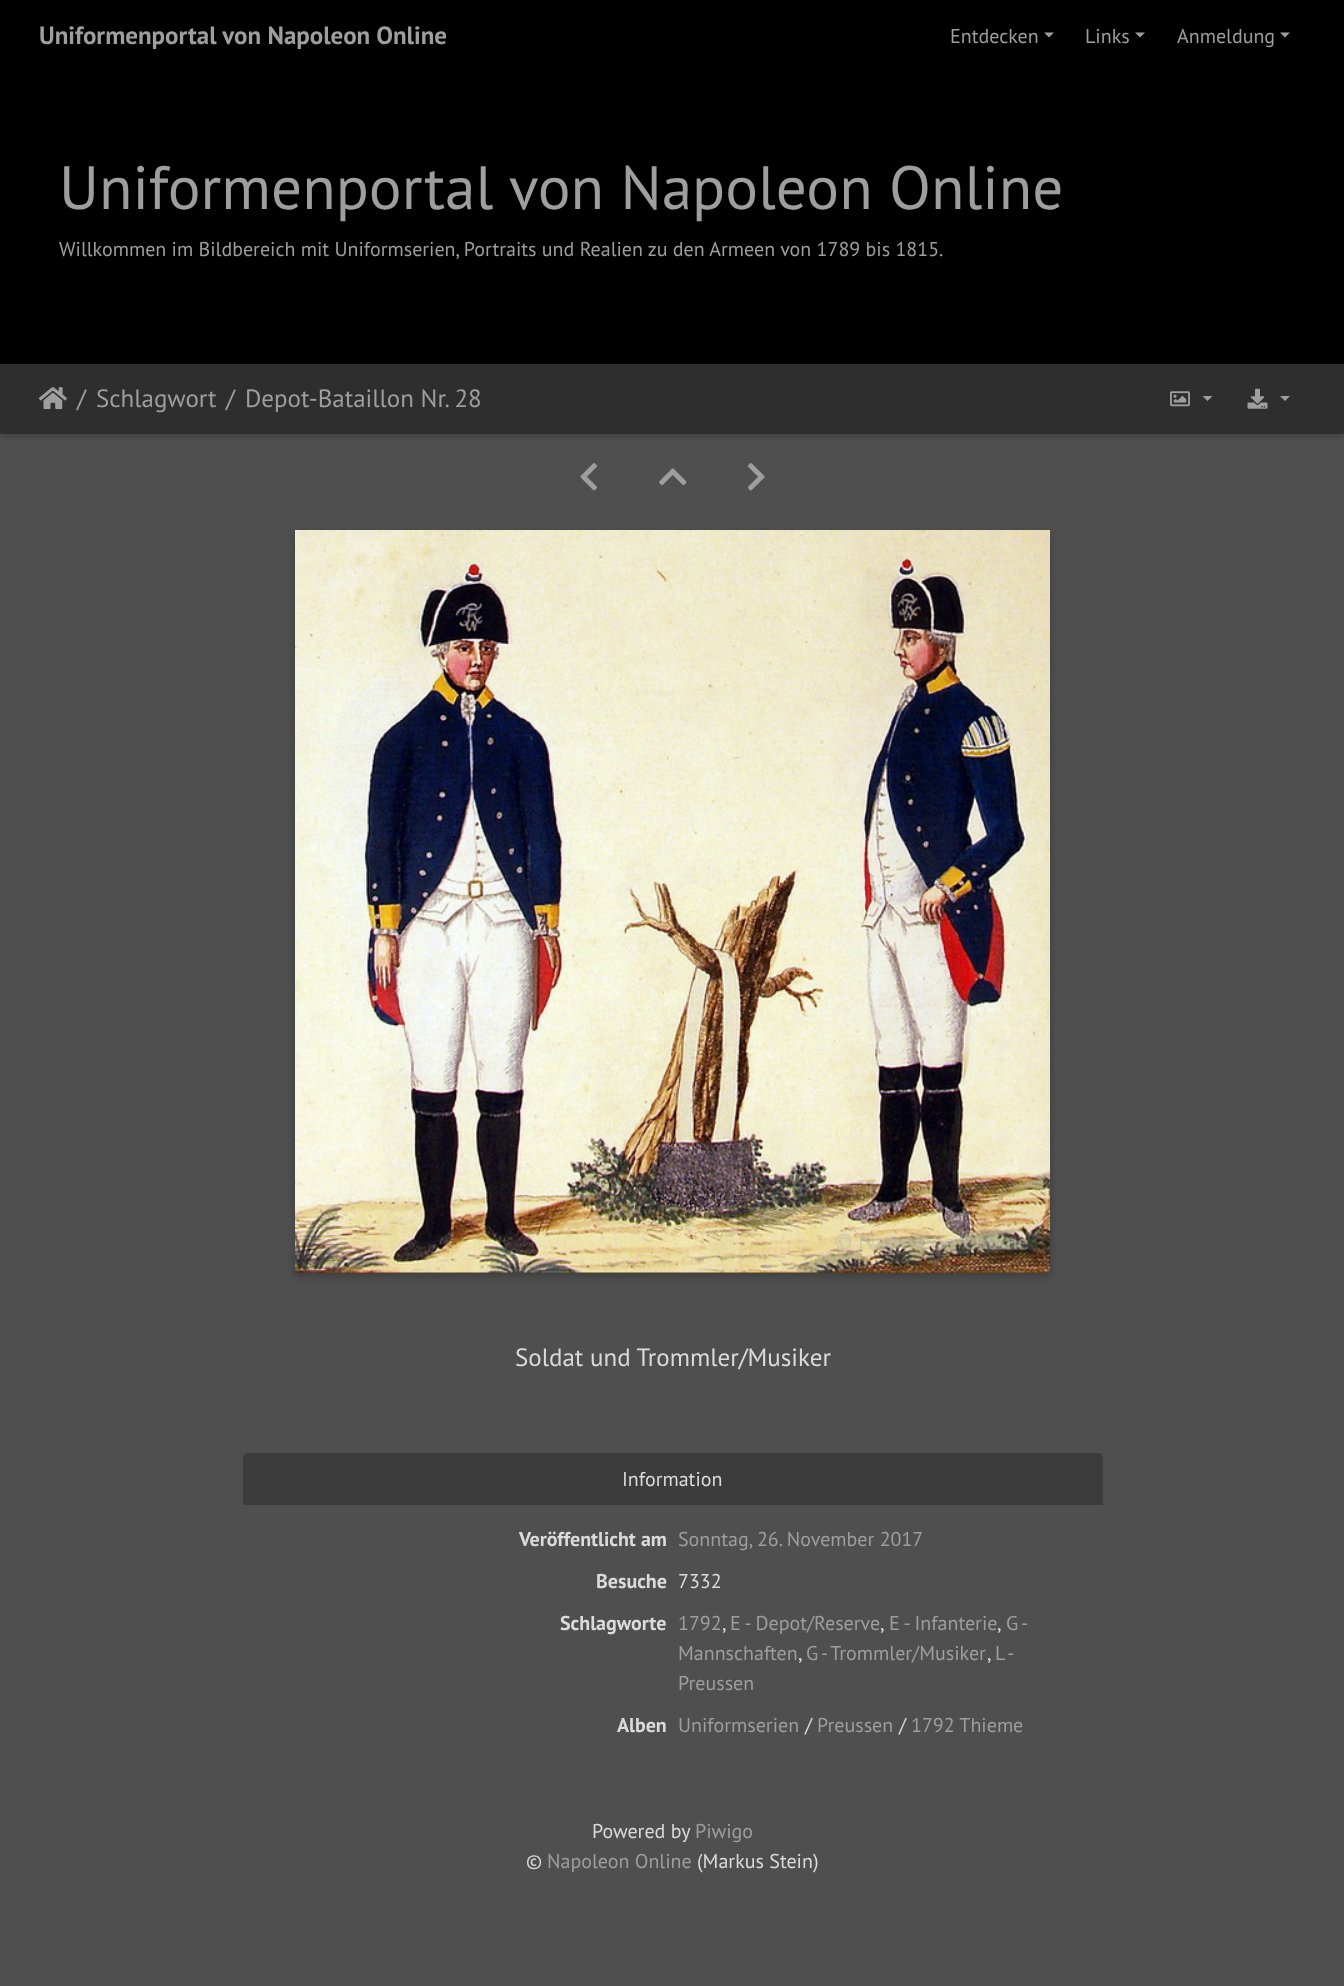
async function draw(canvas) {
  canvas.width = 1344;
  canvas.height = 1986;
  const ctx = canvas.getContext('2d');
  ctx.miterLimit = 4;
  ctx.fontKerning = 'normal';
  function label(s, x, y, font, color) {
    ctx.font = font;
    ctx.fillStyle = color;
    ctx.fillText(s, x, y);
  }
  function rect(x, y, w, h, color) {
    ctx.fillStyle = color;
    ctx.fillRect(x, y, w, h);
  }
  async function image(src, x, y, w, h) {
    const img = new Image();
    img.src = src;
    await img.decode();
    ctx.drawImage(img, x, y, w, h);
  }
  let path;

  rect(0, 0, 1344, 1986, '#4f4f4f');
  rect(0, 0, 1344, 364, '#000');
  label('Uniformenportal von Napoleon Online', 39, 44, 'bold 25px PT Sans', '#9e9e9e');
  label('Entdecken', 950, 43, '20px PT Sans', '#9e9e9e');
  path = new Path2D('M1044 32.5H1054L1049 37.5Z');
  ctx.fill(path);
  label('Links', 1085, 43, '20px PT Sans', '#9e9e9e');
  path = new Path2D('M1135 32.5H1145L1140 37.5Z');
  ctx.fill(path);
  label('Anmeldung', 1177, 43, '20px PT Sans', '#9e9e9e');
  path = new Path2D('M1280 32.5H1290L1285 37.5Z');
  ctx.fill(path);
  label('Uniformenportal von Napoleon Online', 59, 209, '61.25px PT Sans', '#9e9e9e');
  label('Willkommen im Bildbereich mit Uniformserien, Portraits und Realien zu den Armeen von 1789 bis 1815.', 59, 256, '20px PT Sans', '#9e9e9e');
  ctx.fillStyle = '#00000033';
  ctx.filter = 'blur(3px)';
  ctx.beginPath();
  ctx.rect(1, 369, 1343, 67);
  ctx.fill();
  ctx.filter = 'none';
  rect(0, 364, 1344, 70, '#2e2e2e');
  await image('assets/img1.png', 38, 387, 29, 23);
  label('/', 77, 407, '25px PT Sans', '#9e9e9e');
  label('Schlagwort', 96, 407, '25px PT Sans', '#9e9e9e');
  label('/', 226, 407, '25px PT Sans', '#9e9e9e');
  label('Depot-Bataillon Nr. 28', 245, 407, '25px PT Sans', '#9e9e9e');
  await image('assets/img2.png', 1170, 391, 20, 16);
  path = new Path2D('M1202.5 396H1212.5L1207.5 401Z');
  ctx.fill(path);
  await image('assets/img3.png', 1247, 388, 21, 21);
  path = new Path2D('M1280 396H1290L1285 401Z');
  ctx.fill(path);
  await image('assets/img4.png', 580, 463, 17, 28);
  await image('assets/img5.png', 659, 468, 28, 17);
  await image('assets/img6.png', 748, 463, 17, 28);
  ctx.fillStyle = '#0000003b';
  ctx.filter = 'blur(4px)';
  ctx.beginPath();
  ctx.rect(295, 534, 755, 742);
  ctx.fill();
  ctx.filter = 'none';
  await image('assets/img7.png', 295, 530, 755, 743);
  label('Soldat und Trommler/Musiker', 515, 1366, '25px PT Sans', '#dbdbdb');
  ctx.fillStyle = '#3c3c3c';
  ctx.beginPath();
  ctx.roundRect(243.5, 1453.5, 859, 51, [4.5, 4.5, 0, 0]);
  ctx.fill();
  ctx.strokeStyle = '#3c3c3c';
  ctx.stroke();
  label('Information', 622, 1486, '20px PT Sans', '#dbdbdb');
  label('Veröffentlicht am', 519, 1546, 'bold 20px PT Sans', '#dbdbdb');
  label('Sonntag, 26. November 2017', 678, 1546, '20px PT Sans', '#9e9e9e');
  label('Besuche', 596, 1588, 'bold 20px PT Sans', '#dbdbdb');
  label('7332', 678, 1588, '20px PT Sans', '#dbdbdb');
  label('Schlagworte', 560, 1630, 'bold 20px PT Sans', '#dbdbdb');
  label('1792', 678, 1630, '20px PT Sans', '#9e9e9e');
  label(',', 722, 1630, '20px PT Sans', '#dbdbdb');
  label('E - Depot/Reserve', 730, 1630, '20px PT Sans', '#9e9e9e');
  label(',', 880, 1630, '20px PT Sans', '#dbdbdb');
  label('E - Infanterie', 889, 1630, '20px PT Sans', '#9e9e9e');
  label(',', 997, 1630, '20px PT Sans', '#dbdbdb');
  ctx.wordSpacing = '-1px';
  label('G -', 1006, 1630, '20px PT Sans', '#9e9e9e');
  ctx.wordSpacing = '0px';
  label('Mannschaften', 678, 1660, '20px PT Sans', '#9e9e9e');
  ctx.wordSpacing = '-1px';
  label('G - Trommler/Musiker', 806, 1660, '20px PT Sans', '#9e9e9e');
  label('L -', 995, 1660, '20px PT Sans', '#9e9e9e');
  ctx.wordSpacing = '0px';
  label(',', 798, 1660, '20px PT Sans', '#dbdbdb');
  label(',', 987, 1660, '20px PT Sans', '#dbdbdb');
  label('Preussen', 678, 1690, '20px PT Sans', '#9e9e9e');
  label('Alben', 617, 1732, 'bold 20px PT Sans', '#dbdbdb');
  label('Uniformserien', 678, 1732, '20px PT Sans', '#9e9e9e');
  label('/', 805, 1732, '20px PT Sans', '#dbdbdb');
  label('Preussen', 817, 1732, '20px PT Sans', '#9e9e9e');
  label('/', 899, 1732, '20px PT Sans', '#dbdbdb');
  label('1792 Thieme', 911, 1732, '20px PT Sans', '#9e9e9e');
  label('Powered by', 592, 1838, '20px PT Sans', '#dbdbdb');
  label('Piwigo', 695, 1838, '20px PT Sans', '#9e9e9e');
  label('©', 526, 1868, '20px PT Sans', '#dbdbdb');
  label('Napoleon Online', 547, 1868, '20px PT Sans', '#9e9e9e');
  label('(Markus Stein)', 697, 1868, '20px PT Sans', '#dbdbdb');
}

draw(document.querySelector('canvas'));
